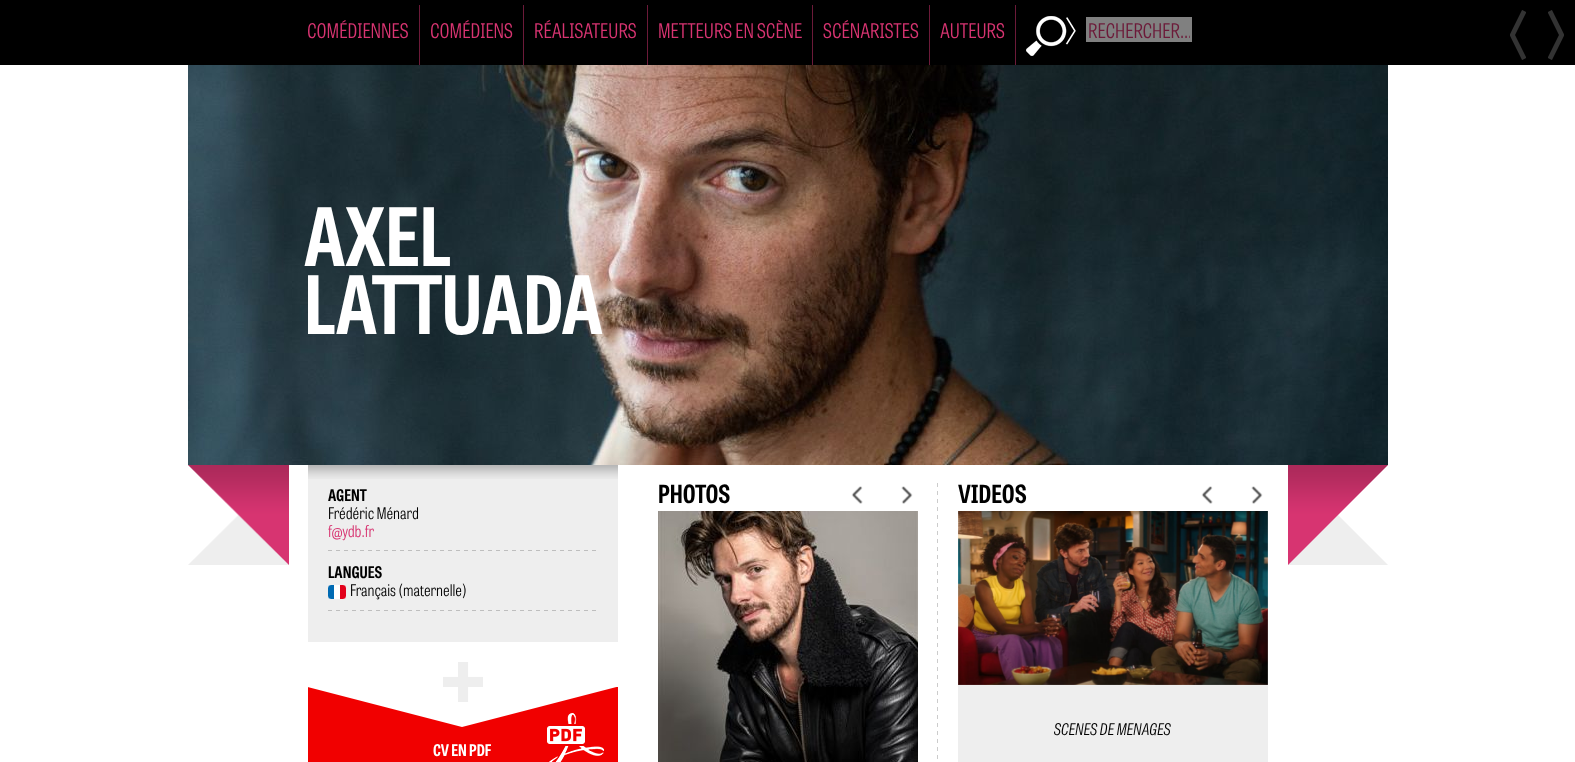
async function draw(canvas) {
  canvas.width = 1575;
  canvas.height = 762;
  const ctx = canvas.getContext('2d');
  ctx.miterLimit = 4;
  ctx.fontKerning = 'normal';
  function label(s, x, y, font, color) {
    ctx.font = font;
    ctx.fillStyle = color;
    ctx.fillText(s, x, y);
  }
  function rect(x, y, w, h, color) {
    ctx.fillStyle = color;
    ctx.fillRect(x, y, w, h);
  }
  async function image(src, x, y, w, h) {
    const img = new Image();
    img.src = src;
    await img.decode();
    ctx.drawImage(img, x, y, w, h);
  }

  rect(0, 0, 1575, 762, '#fff');
  rect(0, 0, 1575, 65, '#000');
  label('COMÉDIENNES', 307, 38, '300 20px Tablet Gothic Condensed', '#d73471');
  rect(419, 5, 1, 60, '#6c1a39');
  label('COMÉDIENS', 430, 38, '300 20px Tablet Gothic Condensed', '#d73471');
  rect(523, 5, 1, 60, '#6c1a39');
  label('RÉALISATEURS', 534, 38, '300 20px Tablet Gothic Condensed', '#d73471');
  rect(647, 5, 1, 60, '#6c1a39');
  label('METTEURS EN SCÈNE', 658, 38, '300 20px Tablet Gothic Condensed', '#d73471');
  rect(812, 5, 1, 60, '#6c1a39');
  label('SCÉNARISTES', 823, 38, '300 20px Tablet Gothic Condensed', '#d73471');
  rect(929, 5, 1, 60, '#6c1a39');
  label('AUTEURS', 940, 38, '300 20px Tablet Gothic Condensed', '#d73471');
  rect(1015, 5, 1, 60, '#6c1a39');
  await image('assets/img1.png', 1026, 16, 50, 40);
  rect(1086, 17, 106, 25, '#808080');
  ctx.save();
  ctx.beginPath();
  ctx.rect(1088, 17, 102, 25);
  ctx.clip();
  label('RECHERCHER...', 1088, 38, '300 20px Tablet Gothic Condensed', '#6c1a39');
  ctx.restore();
  await image('assets/img2.png', 1510, 10, 16, 50);
  await image('assets/img3.png', 1548, 10, 16, 50);
  await image('assets/img4.png', 188, 65, 1200, 400);
  label('AXEL', 304, 266, 'bold 80px Tablet Gothic Condensed', '#fff');
  label('LATTUADA', 304, 334, 'bold 80px Tablet Gothic Condensed', '#fff');
  await image('assets/img5.png', 188, 465, 101, 100);
  rect(308, 465, 310, 177, '#eee');
  await image('assets/img6.png', 308, 465, 310, 14);
  label('AGENT', 328, 501, 'bold 16px Tablet Gothic Condensed', '#000');
  label('Frédéric Ménard', 328, 519, '300 16px Tablet Gothic Condensed', '#000');
  label('f@ydb.fr', 328, 537, '300 16px Tablet Gothic Condensed', '#d73471');
  await image('assets/img7.png', 328, 550, 268, 1);
  label('LANGUES', 328, 578, 'bold 16px Tablet Gothic Condensed', '#000');
  await image('assets/img8.png', 328, 585, 18, 14);
  label('Français (maternelle)', 350, 596, '300 16px Tablet Gothic Condensed', '#000');
  await image('assets/img7.png', 328, 610, 268, 1);
  await image('assets/img9.png', 443, 662, 40, 40);
  await image('assets/img10.png', 308, 687, 310, 75);
  label('CV EN PDF', 433, 756, 'bold 16px Tablet Gothic Condensed', '#fff');
  label('PHOTOS', 658, 503, 'bold 25px Tablet Gothic Condensed', '#000');
  await image('assets/img11.png', 851, 486, 12, 18);
  await image('assets/img12.png', 901, 486, 12, 18);
  await image('assets/img13.png', 658, 511, 260, 251);
  await image('assets/img14.png', 937, 483, 1, 276);
  label('VIDEOS', 958, 503, 'bold 25px Tablet Gothic Condensed', '#000');
  rect(958, 511, 310, 251, '#eee');
  await image('assets/img15.png', 1201, 486, 12, 18);
  await image('assets/img12.png', 1251, 486, 12, 18);
  await image('assets/img16.png', 958, 511, 310, 174);
  label('SCENES DE MENAGES', 1054, 735, 'italic 300 16px Tablet Gothic Condensed', '#000');
  await image('assets/img17.png', 1288, 465, 100, 100);
}

draw(document.querySelector('canvas'));
